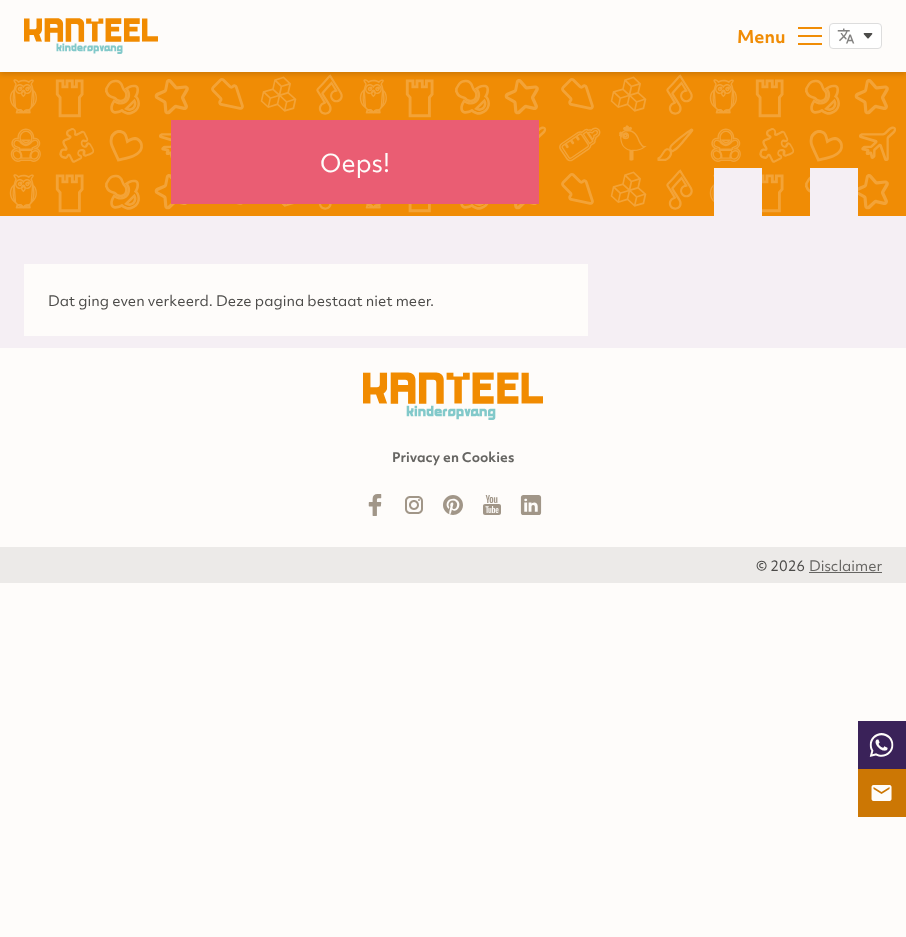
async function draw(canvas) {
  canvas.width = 906;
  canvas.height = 937;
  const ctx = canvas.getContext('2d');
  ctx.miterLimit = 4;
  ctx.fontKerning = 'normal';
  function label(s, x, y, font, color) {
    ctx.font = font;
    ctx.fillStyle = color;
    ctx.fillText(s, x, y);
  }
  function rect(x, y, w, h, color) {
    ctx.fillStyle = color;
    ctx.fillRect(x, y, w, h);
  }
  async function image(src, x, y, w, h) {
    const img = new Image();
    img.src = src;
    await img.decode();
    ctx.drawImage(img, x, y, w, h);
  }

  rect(0, 0, 906, 937, '#fefcfa');
  rect(0, 72, 906, 144, '#f08c05');
  await image('assets/img4.png', 9, 74, 887, 139);
  ctx.fillStyle = '#00000026';
  ctx.filter = 'blur(2.5px)';
  ctx.beginPath();
  ctx.rect(0, 2, 906, 72);
  ctx.fill();
  ctx.filter = 'none';
  rect(0, 0, 906, 72, '#fefcfa');
  await image('assets/img1.png', 24, 18, 134, 36);
  label('Menu', 737, 43, 'bold 17px "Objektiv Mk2"', '#f08c05');
  rect(798, 27, 24, 2, '#f08c05');
  rect(798, 35, 24, 2, '#f08c05');
  rect(798, 43, 24, 2, '#f08c05');
  ctx.fillStyle = '#fff';
  ctx.beginPath();
  ctx.roundRect(829.5, 23.5, 52, 25, 3.5);
  ctx.fill();
  ctx.strokeStyle = '#ddd';
  ctx.stroke();
  await image('assets/img2.png', 837, 28, 18, 16);
  await image('assets/img3.png', 863, 33, 10, 6);
  rect(0, 216, 906, 132, '#f5eff4');
  rect(714, 168, 48, 48, '#f5eff4');
  rect(810, 168, 48, 48, '#f5eff4');
  rect(171, 120, 368, 84, '#ea5d73');
  label('Oeps!', 320, 172, '24px "Objektiv Mk2"', '#fefcfa');
  rect(24, 264, 564, 72, '#fefcfa');
  label('Dat ging even verkeerd. Deze pagina bestaat niet meer.', 48, 306, '14px "Objektiv Mk2"', '#4c4b49');
  await image('assets/img5.png', 363, 372, 180, 48);
  label('Privacy en Cookies', 392, 462, 'bold 13px "Objektiv Mk2"', '#666562');
  await image('assets/img6.png', 368, 494, 14, 22);
  await image('assets/img7.png', 405, 496, 18, 18);
  await image('assets/img8.png', 443, 495, 20, 20);
  await image('assets/img9.png', 483, 495, 18, 20);
  await image('assets/img10.png', 520, 495, 22, 20);
  rect(0, 547, 906, 36, '#eceae8');
  label('© 2026', 756, 571, '14px "Objektiv Mk2"', '#4c4b49');
  label('Disclaimer', 809, 571, '14px "Objektiv Mk2"', '#666562');
  rect(809, 572, 73, 1, '#666562');
  rect(858, 721, 48, 48, '#3a2259');
  await image('assets/img11.png', 869, 733, 25, 24);
  rect(858, 769, 48, 48, '#cc7704');
  await image('assets/img12.png', 871, 785, 21, 16);
}

draw(document.querySelector('canvas'));
